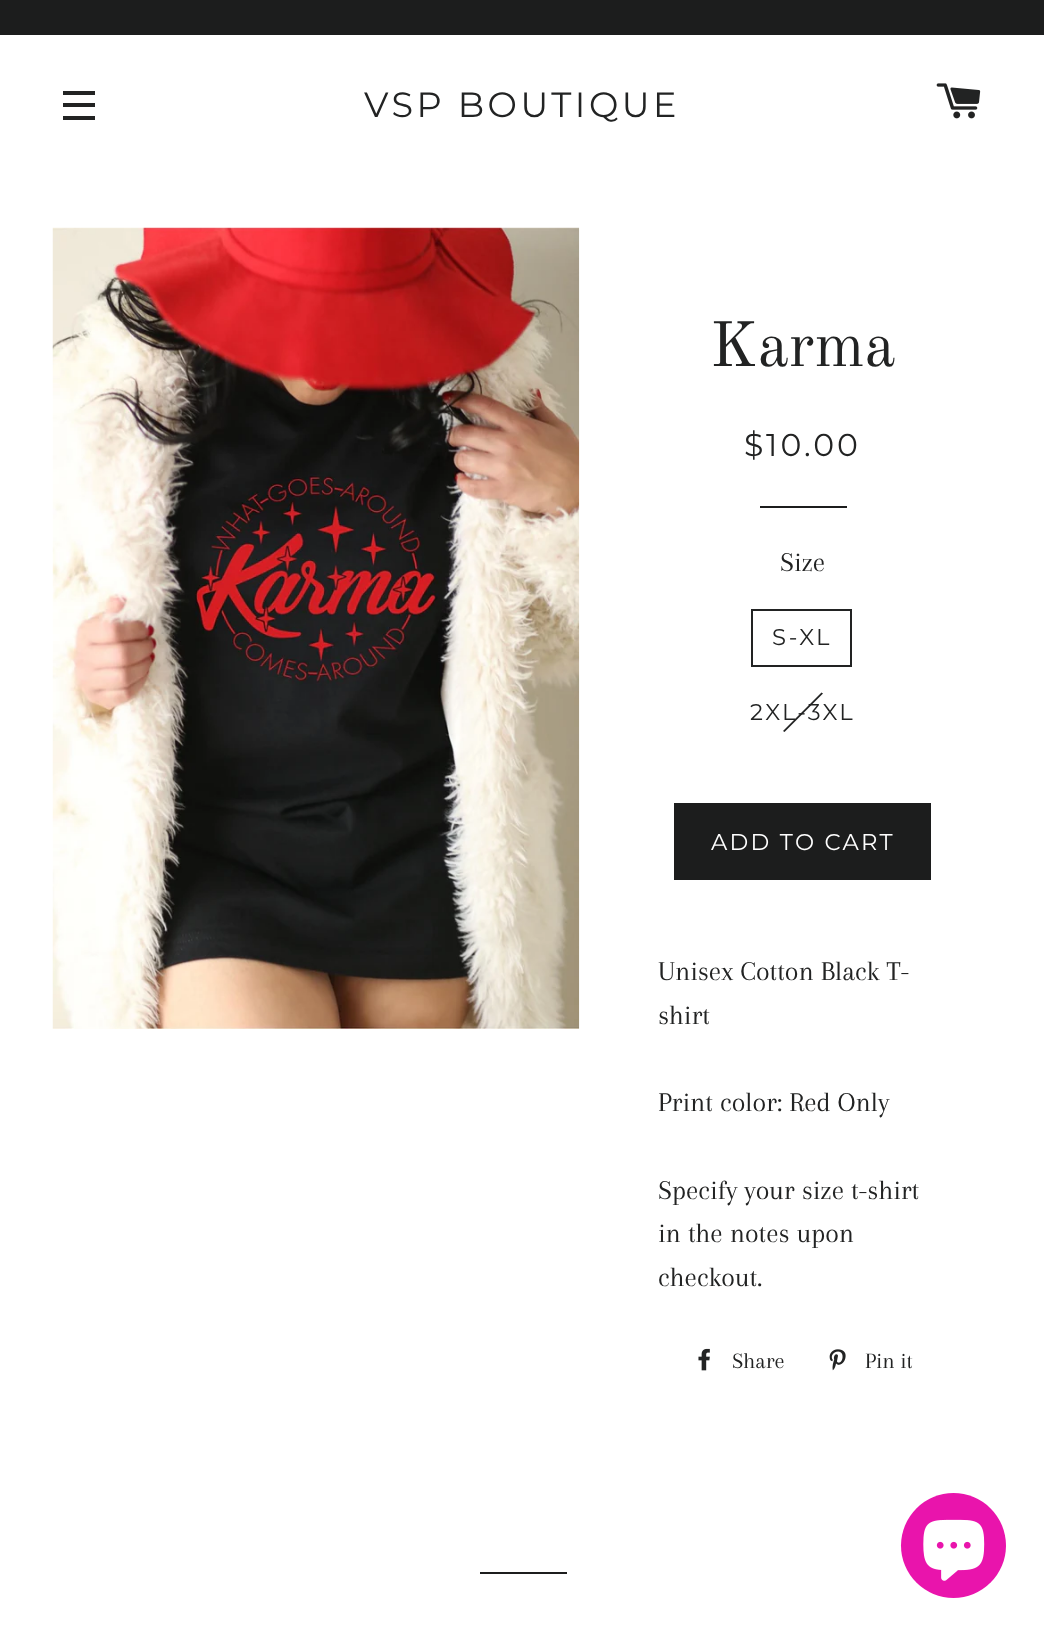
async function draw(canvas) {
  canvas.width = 1044;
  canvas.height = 1634;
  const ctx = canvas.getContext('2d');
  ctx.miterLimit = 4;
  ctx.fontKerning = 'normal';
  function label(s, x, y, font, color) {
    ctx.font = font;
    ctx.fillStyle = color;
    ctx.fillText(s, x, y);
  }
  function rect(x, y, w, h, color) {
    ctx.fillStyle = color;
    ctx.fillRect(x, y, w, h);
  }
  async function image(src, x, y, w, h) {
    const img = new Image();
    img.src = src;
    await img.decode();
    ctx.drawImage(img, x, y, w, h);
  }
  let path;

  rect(0, 0, 1044, 1634, '#fff');
  rect(0, 0, 1044, 35, '#1c1d1d');
  rect(63, 91, 32, 4, '#222323');
  rect(63, 103, 32, 4, '#222323');
  rect(63, 116, 32, 4, '#222323');
  ctx.letterSpacing = '3.5px';
  label('VSP BOUTIQUE', 364, 117, '100 35px Montserrat', '#222323');
  await image('assets/img1.png', 936, 83, 45, 36);
  await image('assets/img2.png', 52, 227, 528, 802);
  ctx.letterSpacing = '0px';
  label('Karma', 710, 366, '63px Old Standard TT', '#222323');
  ctx.letterSpacing = '3px';
  label('$10.00', 744, 456, '100 31.5px Montserrat', '#222323');
  rect(760, 506, 87, 2, '#1c1d1d');
  ctx.letterSpacing = '0px';
  label('Size', 780, 571, '28px Arapey', '#222323');
  ctx.strokeStyle = '#222323';
  ctx.lineWidth = 2;
  ctx.strokeRect(752, 610, 99, 56);
  ctx.letterSpacing = '2.25px';
  label('S-XL', 772, 645, '100 22.75px Montserrat', '#222323');
  path = new Path2D('M821.5 692.5L823 693.5L784.5 732L783 731Z');
  ctx.fill(path);
  label('2XL-3XL', 750, 720, '100 22.75px Montserrat', '#222323');
  rect(674, 803, 257, 77, '#1c1d1d');
  label('ADD TO CART', 711, 850, '100 22.75px Montserrat', '#fff');
  ctx.letterSpacing = '0px';
  label('Unisex Cotton Black T-', 658, 980, '28px Arapey', '#222323');
  label('shirt', 658, 1024, '28px Arapey', '#222323');
  label('Print color: Red Only', 658, 1111, '28px Arapey', '#222323');
  label('Specify your size t-shirt', 658, 1199, '28px Arapey', '#222323');
  label('in the notes upon', 658, 1242, '28px Arapey', '#222323');
  label('checkout.', 658, 1286, '28px Arapey', '#222323');
  await image('assets/img3.png', 698, 1348, 12, 23);
  label('Share', 732, 1368, '22.75px Arapey', '#222323');
  await image('assets/img4.png', 829, 1349, 17, 22);
  label('Pin it', 865, 1368, '22.75px Arapey', '#222323');
  rect(480, 1572, 87, 2, '#1c1d1d');
  ctx.fillStyle = '#e914ac';
  ctx.beginPath();
  ctx.arc(953.5, 1545.5, 52.5, 0, 2 * Math.PI);
  ctx.fill();
  await image('assets/img5.png', 923, 1519, 62, 62);
}

draw(document.querySelector('canvas'));
